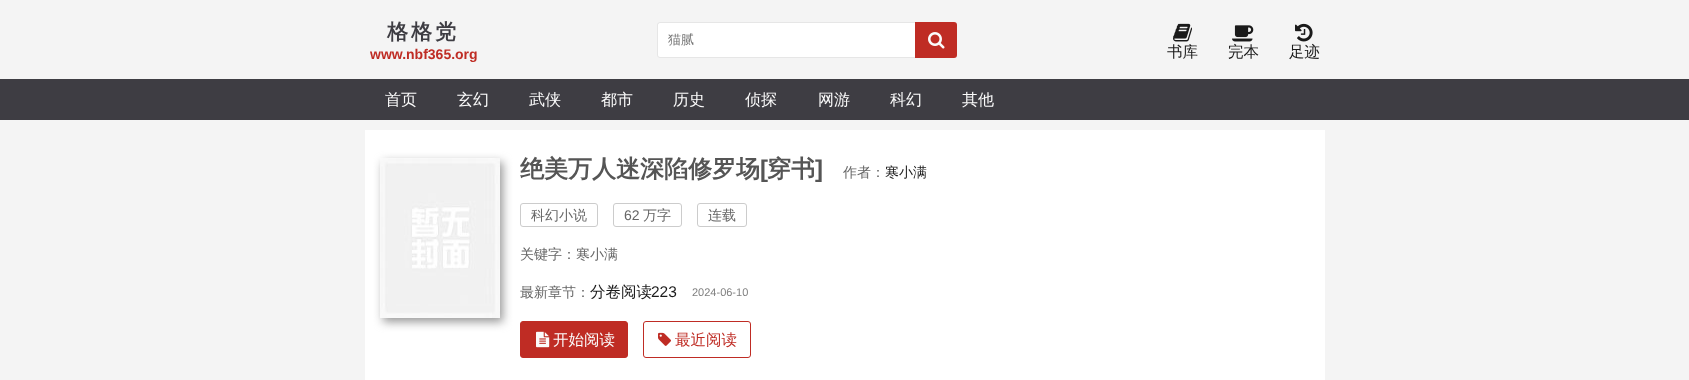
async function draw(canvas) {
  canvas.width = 1689;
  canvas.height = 380;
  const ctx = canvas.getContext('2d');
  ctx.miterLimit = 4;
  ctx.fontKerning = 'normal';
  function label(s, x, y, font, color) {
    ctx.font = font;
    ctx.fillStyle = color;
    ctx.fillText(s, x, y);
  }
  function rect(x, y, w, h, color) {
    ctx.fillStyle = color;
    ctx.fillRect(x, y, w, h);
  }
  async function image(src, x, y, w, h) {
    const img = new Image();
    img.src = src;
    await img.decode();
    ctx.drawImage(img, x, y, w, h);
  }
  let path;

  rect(0, 0, 1689, 380, '#f4f4f4');
  ctx.letterSpacing = '3px';
  label('格格党', 387, 39, 'bold 21px WenQuanYi Zen Hei', '#3e3d43');
  ctx.letterSpacing = '0px';
  label('www.nbf365.org', 370, 59, 'bold 14px Liberation Sans', '#bf2c24');
  ctx.fillStyle = '#fff';
  ctx.beginPath();
  ctx.roundRect(657, 22, 258, 36, [3, 0, 0, 3]);
  ctx.fill();
  ctx.fillStyle = '#e6e6e6';
  path = new Path2D('M660 22H915V58H660C658 58 657 57 657 55V25C657 23 658 22 660 22ZM660 23H915V57H660C659 57 658 56 658 55V25C658 24 659 23 660 23Z');
  ctx.fill(path, 'evenodd');
  label('猫腻', 668, 44, '500 13px WenQuanYi Zen Hei', '#757575');
  ctx.fillStyle = '#bf2c24';
  ctx.beginPath();
  ctx.roundRect(915, 22, 42, 36, [0, 3, 3, 0]);
  ctx.fill();
  await image('assets/img1.png', 928, 32, 17, 17);
  await image('assets/img2.png', 1173, 23, 19, 19);
  label('书库', 1167, 57, '500 15.5px WenQuanYi Zen Hei', '#1a1a1a');
  await image('assets/img3.png', 1232, 25, 22, 17);
  label('完本', 1228, 57, '500 15.5px WenQuanYi Zen Hei', '#1a1a1a');
  await image('assets/img4.png', 1295, 23, 18, 19);
  label('足迹', 1289, 57, '500 15.5px WenQuanYi Zen Hei', '#1a1a1a');
  rect(0, 79, 1689, 41, '#3e3d43');
  label('首页', 385, 105, '500 16px WenQuanYi Zen Hei', '#fbfbfb');
  label('玄幻', 457, 105, '500 16px WenQuanYi Zen Hei', '#fbfbfb');
  label('武侠', 529, 105, '500 16px WenQuanYi Zen Hei', '#fbfbfb');
  label('都市', 601, 105, '500 16px WenQuanYi Zen Hei', '#fbfbfb');
  label('历史', 673, 105, '500 16px WenQuanYi Zen Hei', '#fbfbfb');
  label('侦探', 745, 105, '500 16px WenQuanYi Zen Hei', '#fbfbfb');
  label('网游', 818, 105, '500 16px WenQuanYi Zen Hei', '#fbfbfb');
  label('科幻', 890, 105, '500 16px WenQuanYi Zen Hei', '#fbfbfb');
  label('其他', 962, 105, '500 16px WenQuanYi Zen Hei', '#fbfbfb');
  rect(365, 130, 960, 250, '#fff');
  ctx.fillStyle = '#999';
  ctx.filter = 'blur(5px)';
  ctx.beginPath();
  ctx.rect(383, 162, 120, 160);
  ctx.fill();
  ctx.filter = 'none';
  await image('assets/img5.png', 380, 158, 120, 160);
  label('绝美万人迷深陷修罗场', 520, 177, 'bold 24px WenQuanYi Zen Hei', '#555');
  label('[', 760, 177, 'bold 24px Liberation Sans', '#555');
  label('穿书', 767, 177, 'bold 24px WenQuanYi Zen Hei', '#555');
  label(']', 815, 177, 'bold 24px Liberation Sans', '#555');
  label('作者：', 843, 177, '500 14px WenQuanYi Zen Hei', '#666');
  label('寒小满', 885, 177, '500 14px WenQuanYi Zen Hei', '#1a1a1a');
  ctx.beginPath();
  ctx.roundRect(520.5, 203.5, 77, 23, 2.5);
  ctx.strokeStyle = '#ccc';
  ctx.stroke();
  label('科幻小说', 531, 220, '500 14px WenQuanYi Zen Hei', '#666');
  ctx.beginPath();
  ctx.roundRect(613.5, 203.5, 68, 23, 2.5);
  ctx.stroke();
  label('62', 624, 220, '14px Liberation Sans', '#666');
  label('万字', 643, 220, '500 14px WenQuanYi Zen Hei', '#666');
  ctx.beginPath();
  ctx.roundRect(697.5, 203.5, 49, 23, 2.5);
  ctx.stroke();
  label('连载', 708, 220, '500 14px WenQuanYi Zen Hei', '#666');
  label('关键字：寒小满', 520, 259, '500 14px WenQuanYi Zen Hei', '#666');
  label('最新章节：', 520, 297, '500 14px WenQuanYi Zen Hei', '#666');
  label('分卷阅读', 590, 297, '500 15.5px WenQuanYi Zen Hei', '#1a1a1a');
  label('223', 651, 297, '15.5px Liberation Sans', '#1a1a1a');
  label('2024-06-10', 692, 296, '11px Liberation Sans', '#808080');
  ctx.fillStyle = '#bf2c24';
  ctx.beginPath();
  ctx.roundRect(520.5, 321.5, 107, 36, 2.5);
  ctx.fill();
  ctx.strokeStyle = '#bf2c24';
  ctx.stroke();
  await image('assets/img6.png', 536, 331, 14, 17);
  label('开始阅读', 553, 345, '500 15.5px WenQuanYi Zen Hei', '#fbfbfb');
  ctx.beginPath();
  ctx.roundRect(643.5, 321.5, 107, 36, 2.5);
  ctx.stroke();
  await image('assets/img7.png', 658, 332, 13, 14);
  label('最近阅读', 675, 345, '500 15.5px WenQuanYi Zen Hei', '#bf2c24');
}

draw(document.querySelector('canvas'));
